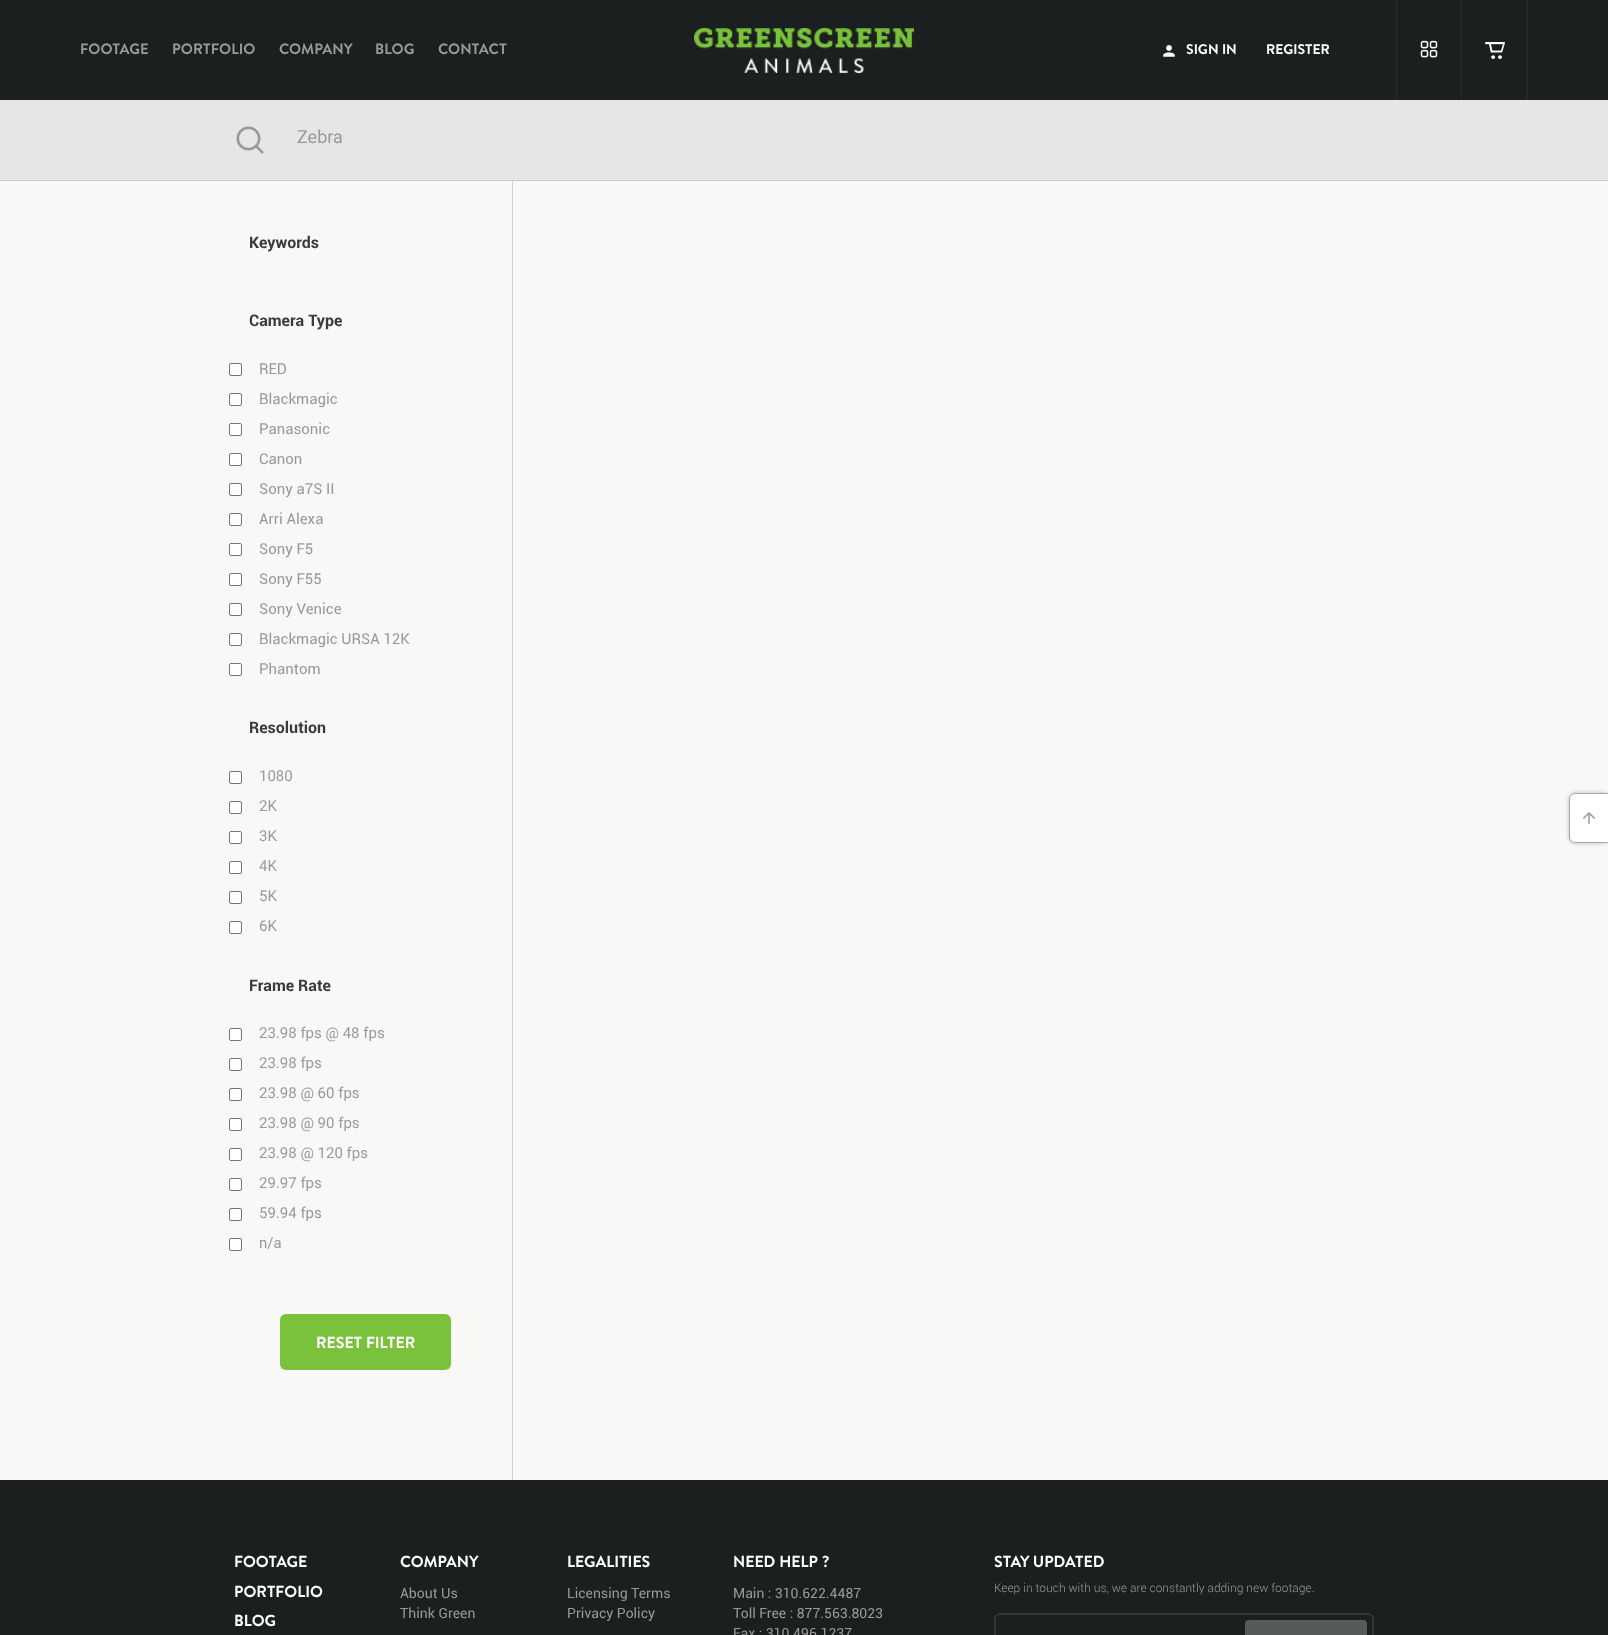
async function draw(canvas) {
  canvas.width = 1608;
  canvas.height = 1635;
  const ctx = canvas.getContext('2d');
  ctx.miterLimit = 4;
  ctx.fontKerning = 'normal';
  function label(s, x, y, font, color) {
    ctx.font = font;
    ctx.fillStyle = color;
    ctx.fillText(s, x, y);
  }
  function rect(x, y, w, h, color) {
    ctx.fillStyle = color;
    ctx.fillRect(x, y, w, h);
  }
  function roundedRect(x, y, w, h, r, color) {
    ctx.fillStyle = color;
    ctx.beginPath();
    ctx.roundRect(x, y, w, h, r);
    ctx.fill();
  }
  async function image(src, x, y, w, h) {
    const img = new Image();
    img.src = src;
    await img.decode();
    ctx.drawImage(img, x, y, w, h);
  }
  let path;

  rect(0, 0, 1608, 1635, '#f8f9f6');
  rect(0, 0, 1608, 100, '#1b1f1f');
  label('FOOTAGE', 80, 54, 'bold 15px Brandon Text', '#999');
  label('PORTFOLIO', 172, 54, 'bold 15px Brandon Text', '#999');
  label('COMPANY', 279, 54, 'bold 15px Brandon Text', '#999');
  label('BLOG', 375, 54, 'bold 15px Brandon Text', '#999');
  label('CONTACT', 438, 54, 'bold 15px Brandon Text', '#999');
  await image('assets/img1.png', 694, 28, 220, 45);
  await image('assets/img2.png', 1163, 45, 12, 12);
  label('SIGN IN', 1186, 54, 'bold 14px Brandon Text', '#fff');
  label('REGISTER', 1266, 54, 'bold 14px Brandon Text', '#fff');
  rect(1461, 0, 1, 100, '#2b2d2d');
  rect(1396, 0, 1, 100, '#2b2d2d');
  await image('assets/img3.png', 1420, 40, 18, 18);
  rect(1527, 0, 1, 100, '#2b2d2d');
  await image('assets/img4.png', 1485, 42, 20, 17);
  rect(0, 100, 1608, 80, '#e6e6e6');
  rect(0, 180, 1608, 1, '#ccc');
  await image('assets/img5.png', 236, 126, 28, 28);
  label('Zebra', 297, 143, '18px Roboto', '#999');
  label('Keywords', 249, 248, 'bold 16px Roboto', '#3b3b3b');
  label('Camera Type', 249, 326, 'bold 16px Roboto', '#3b3b3b');
  ctx.fillStyle = '#fff';
  ctx.beginPath();
  ctx.roundRect(229.5, 363.5, 12, 12, 1.5);
  ctx.fill();
  ctx.strokeStyle = '#767676';
  ctx.stroke();
  label('RED', 259, 374, '15px "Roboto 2"', '#999');
  ctx.fillStyle = '#fff';
  ctx.beginPath();
  ctx.roundRect(229.5, 393.5, 12, 12, 1.5);
  ctx.fill();
  ctx.stroke();
  label('Blackmagic', 259, 404, '15px "Roboto 2"', '#999');
  ctx.fillStyle = '#fff';
  ctx.beginPath();
  ctx.roundRect(229.5, 423.5, 12, 12, 1.5);
  ctx.fill();
  ctx.stroke();
  label('Panasonic', 259, 434, '15px "Roboto 2"', '#999');
  ctx.fillStyle = '#fff';
  ctx.beginPath();
  ctx.roundRect(229.5, 453.5, 12, 12, 1.5);
  ctx.fill();
  ctx.stroke();
  label('Canon', 259, 464, '15px "Roboto 2"', '#999');
  ctx.fillStyle = '#fff';
  ctx.beginPath();
  ctx.roundRect(229.5, 483.5, 12, 12, 1.5);
  ctx.fill();
  ctx.stroke();
  label('Sony a7S II', 259, 494, '15px "Roboto 2"', '#999');
  ctx.fillStyle = '#fff';
  ctx.beginPath();
  ctx.roundRect(229.5, 513.5, 12, 12, 1.5);
  ctx.fill();
  ctx.stroke();
  label('Arri Alexa', 259, 524, '15px "Roboto 2"', '#999');
  ctx.fillStyle = '#fff';
  ctx.beginPath();
  ctx.roundRect(229.5, 543.5, 12, 12, 1.5);
  ctx.fill();
  ctx.stroke();
  label('Sony F5', 259, 554, '15px "Roboto 2"', '#999');
  ctx.fillStyle = '#fff';
  ctx.beginPath();
  ctx.roundRect(229.5, 573.5, 12, 12, 1.5);
  ctx.fill();
  ctx.stroke();
  label('Sony F55', 259, 584, '15px "Roboto 2"', '#999');
  ctx.fillStyle = '#fff';
  ctx.beginPath();
  ctx.roundRect(229.5, 603.5, 12, 12, 1.5);
  ctx.fill();
  ctx.stroke();
  label('Sony Venice', 259, 614, '15px "Roboto 2"', '#999');
  ctx.fillStyle = '#fff';
  ctx.beginPath();
  ctx.roundRect(229.5, 633.5, 12, 12, 1.5);
  ctx.fill();
  ctx.stroke();
  label('Blackmagic URSA 12K', 259, 644, '15px "Roboto 2"', '#999');
  ctx.fillStyle = '#fff';
  ctx.beginPath();
  ctx.roundRect(229.5, 663.5, 12, 12, 1.5);
  ctx.fill();
  ctx.stroke();
  label('Phantom', 259, 674, '15px "Roboto 2"', '#999');
  label('Resolution', 249, 733, 'bold 16px Roboto', '#3b3b3b');
  ctx.fillStyle = '#fff';
  ctx.beginPath();
  ctx.roundRect(229.5, 771.5, 12, 12, 1.5);
  ctx.fill();
  ctx.stroke();
  label('1080', 259, 781, '15px Roboto', '#999');
  ctx.fillStyle = '#fff';
  ctx.beginPath();
  ctx.roundRect(229.5, 801.5, 12, 12, 1.5);
  ctx.fill();
  ctx.stroke();
  label('2K', 259, 811, '15px Roboto', '#999');
  ctx.fillStyle = '#fff';
  ctx.beginPath();
  ctx.roundRect(229.5, 831.5, 12, 12, 1.5);
  ctx.fill();
  ctx.stroke();
  label('3K', 259, 841, '15px Roboto', '#999');
  ctx.fillStyle = '#fff';
  ctx.beginPath();
  ctx.roundRect(229.5, 861.5, 12, 12, 1.5);
  ctx.fill();
  ctx.stroke();
  label('4K', 259, 871, '15px Roboto', '#999');
  ctx.fillStyle = '#fff';
  ctx.beginPath();
  ctx.roundRect(229.5, 891.5, 12, 12, 1.5);
  ctx.fill();
  ctx.stroke();
  label('5K', 259, 901, '15px Roboto', '#999');
  ctx.fillStyle = '#fff';
  ctx.beginPath();
  ctx.roundRect(229.5, 921.5, 12, 12, 1.5);
  ctx.fill();
  ctx.stroke();
  label('6K', 259, 931, '15px Roboto', '#999');
  label('Frame Rate', 249, 991, 'bold 16px Roboto', '#3b3b3b');
  ctx.fillStyle = '#fff';
  ctx.beginPath();
  ctx.roundRect(229.5, 1028.5, 12, 12, 1.5);
  ctx.fill();
  ctx.stroke();
  label('23.98 fps @ 48 fps', 259, 1038, '15px Roboto', '#999');
  ctx.fillStyle = '#fff';
  ctx.beginPath();
  ctx.roundRect(229.5, 1058.5, 12, 12, 1.5);
  ctx.fill();
  ctx.stroke();
  label('23.98 fps', 259, 1068, '15px Roboto', '#999');
  ctx.fillStyle = '#fff';
  ctx.beginPath();
  ctx.roundRect(229.5, 1088.5, 12, 12, 1.5);
  ctx.fill();
  ctx.stroke();
  label('23.98 @ 60 fps', 259, 1098, '15px Roboto', '#999');
  ctx.fillStyle = '#fff';
  ctx.beginPath();
  ctx.roundRect(229.5, 1118.5, 12, 12, 1.5);
  ctx.fill();
  ctx.stroke();
  label('23.98 @ 90 fps', 259, 1128, '15px Roboto', '#999');
  ctx.fillStyle = '#fff';
  ctx.beginPath();
  ctx.roundRect(229.5, 1148.5, 12, 12, 1.5);
  ctx.fill();
  ctx.stroke();
  label('23.98 @ 120 fps', 259, 1158, '15px Roboto', '#999');
  ctx.fillStyle = '#fff';
  ctx.beginPath();
  ctx.roundRect(229.5, 1178.5, 12, 12, 1.5);
  ctx.fill();
  ctx.stroke();
  label('29.97 fps', 259, 1188, '15px Roboto', '#999');
  ctx.fillStyle = '#fff';
  ctx.beginPath();
  ctx.roundRect(229.5, 1208.5, 12, 12, 1.5);
  ctx.fill();
  ctx.stroke();
  label('59.94 fps', 259, 1218, '15px Roboto', '#999');
  ctx.fillStyle = '#fff';
  ctx.beginPath();
  ctx.roundRect(229.5, 1238.5, 12, 12, 1.5);
  ctx.fill();
  ctx.stroke();
  label('n/a', 259, 1248, '15px Roboto', '#999');
  roundedRect(280, 1314, 171, 56, 6, '#7ac23c');
  label('RESET FILTER', 316, 1348, 'bold 16px Brandon Text', '#fff');
  rect(512, 181, 1, 1299, '#d3d4d3');
  rect(0, 1480, 1608, 155, '#1b1f1f');
  ctx.fillStyle = '#01010140';
  ctx.filter = 'blur(2px)';
  ctx.beginPath();
  ctx.roundRect(1569, 793, 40, 50, 6);
  ctx.fill();
  ctx.filter = 'none';
  ctx.fillStyle = '#fff';
  path = new Path2D('M1575 793.5H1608.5V842.5H1575C1572 842.5 1569.5 840 1569.5 837V799C1569.5 796 1572 793.5 1575 793.5Z');
  ctx.fill(path);
  ctx.strokeStyle = '#a7a9ac';
  ctx.stroke(path);
  await image('assets/img6.png', 1583, 812, 12, 12);
  label('FOOTAGE', 234, 1567, 'bold 16px Brandon Text', '#fff');
  label('PORTFOLIO', 234, 1597, 'bold 16px Brandon Text', '#fff');
  label('BLOG', 234, 1626, 'bold 16px Brandon Text', '#fff');
  label('COMPANY', 400, 1567, 'bold 16px Brandon Text', '#fff');
  label('About Us', 400, 1598, '14px "Roboto 2"', '#999');
  label('Think Green', 400, 1618, '14px "Roboto 2"', '#999');
  label('LEGALITIES', 567, 1567, 'bold 16px Brandon Text', '#fff');
  label('Licensing Terms', 567, 1598, '14px "Roboto 2"', '#999');
  label('Privacy Policy', 567, 1618, '14px "Roboto 2"', '#999');
  label('NEED HELP ?', 733, 1567, 'bold 16px Brandon Text', '#fff');
  label('Main : 310.622.4487', 733, 1598, '14px "Roboto 2"', '#999');
  label('Toll Free : 877.563.8023', 733, 1618, '14px "Roboto 2"', '#999');
  label('Fax : 310.496.1237', 733, 1638, '14px "Roboto 2"', '#999');
  label('STAY UPDATED', 994, 1567, 'bold 16px Brandon Text', '#fff');
  label('Keep in touch with us, we are constantly adding new footage.', 994, 1592, '300 12px Roboto', '#999');
  ctx.beginPath();
  ctx.roundRect(995, 1614, 378, 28, 5);
  ctx.strokeStyle = '#323636';
  ctx.lineWidth = 2;
  ctx.stroke();
  roundedRect(1245, 1620, 122, 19, 4, '#565a5a');
}

draw(document.querySelector('canvas'));
